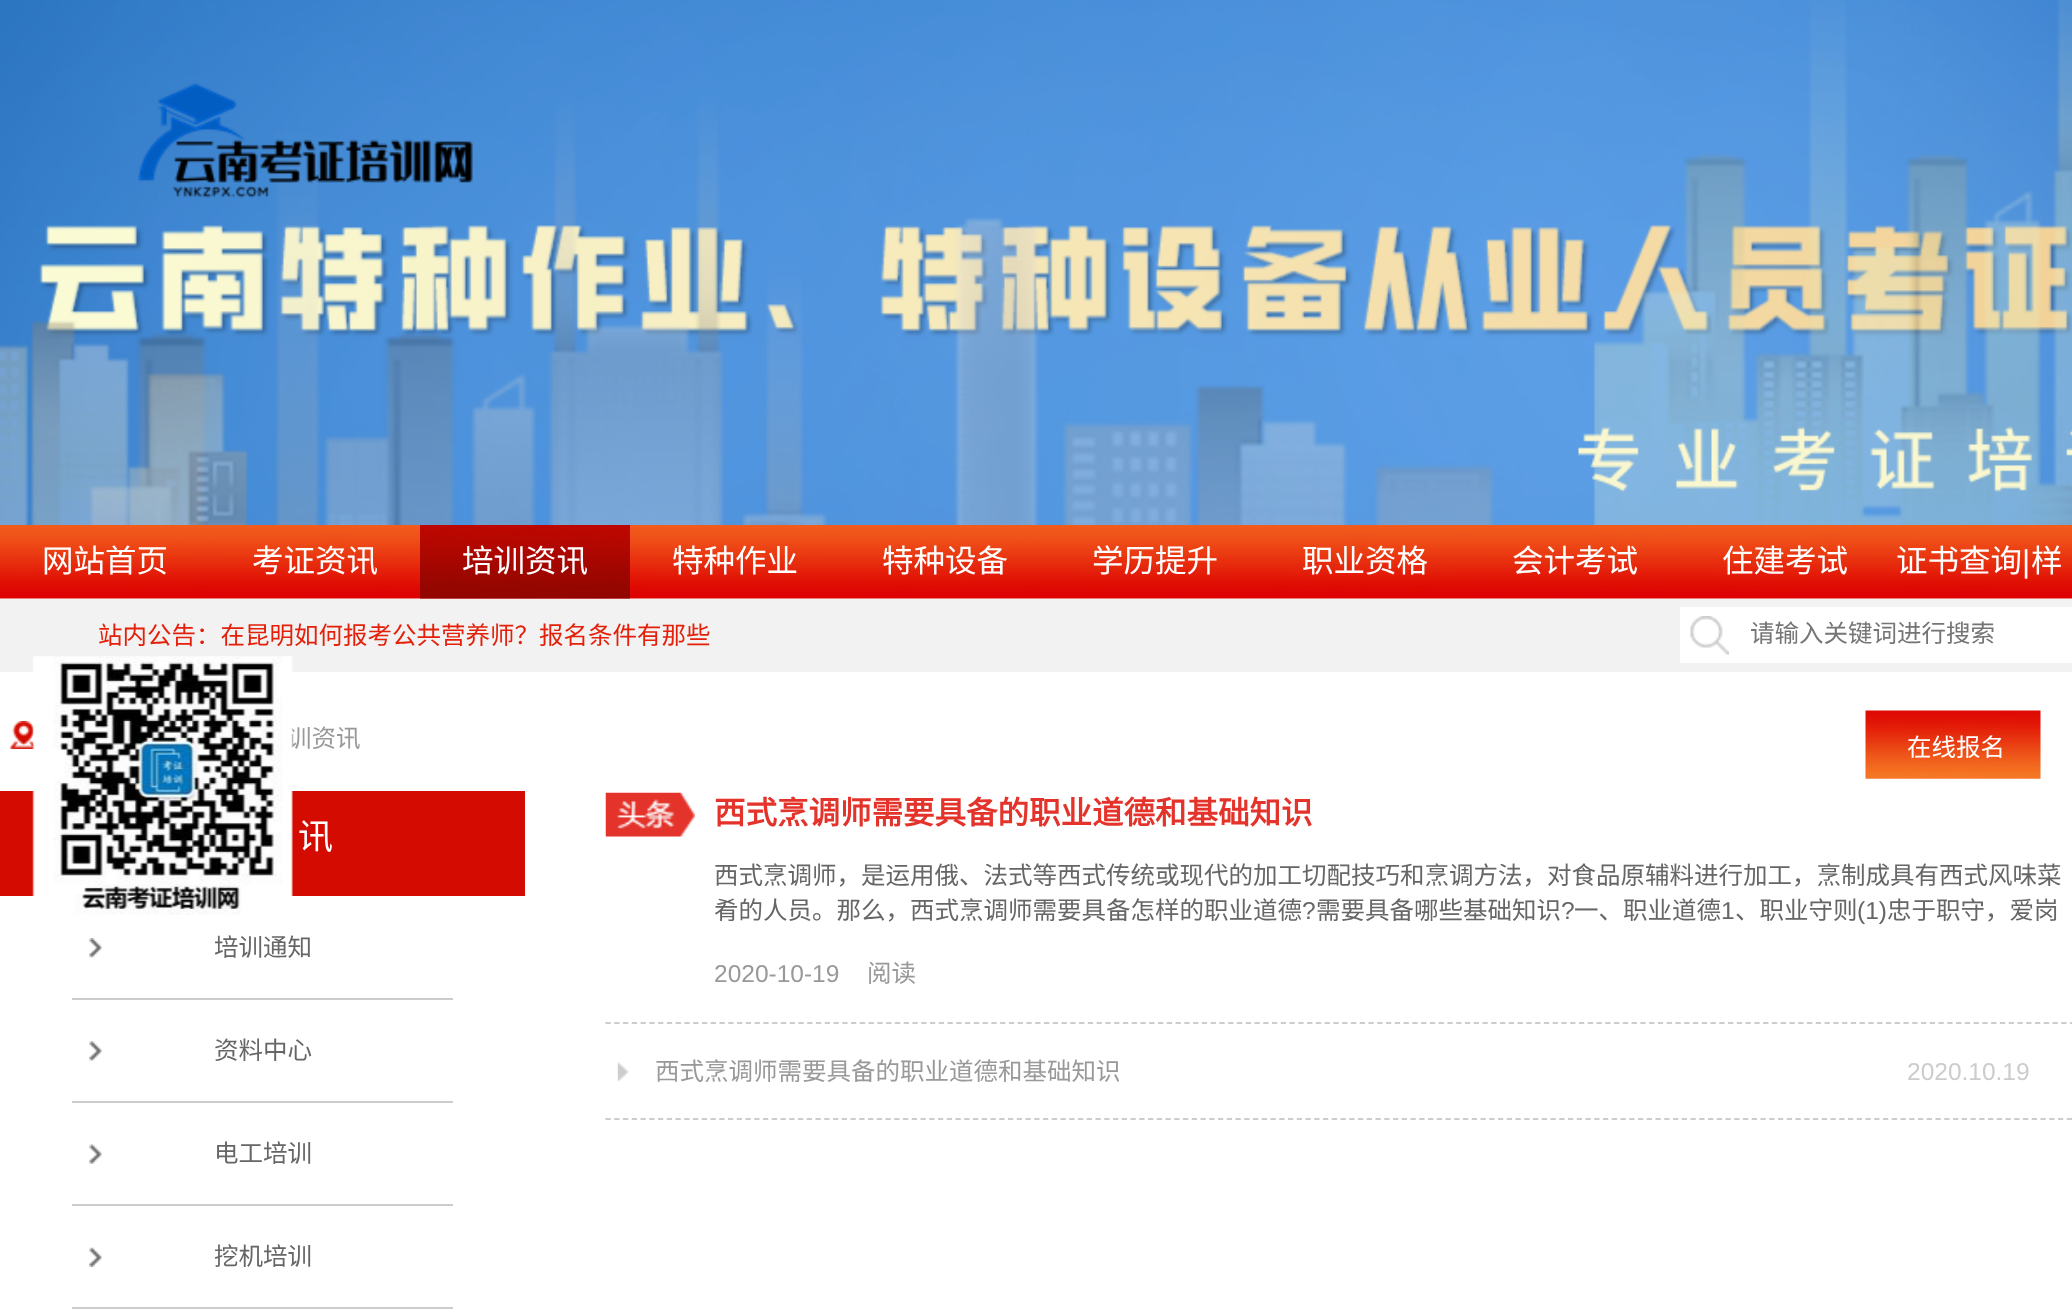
async function draw(canvas) {
  canvas.width = 2072;
  canvas.height = 1311;
  const ctx = canvas.getContext('2d');
  ctx.miterLimit = 4;
  ctx.fontKerning = 'normal';
  function label(s, x, y, font, color) {
    ctx.font = font;
    ctx.fillStyle = color;
    ctx.fillText(s, x, y);
  }
  function rect(x, y, w, h, color) {
    ctx.fillStyle = color;
    ctx.fillRect(x, y, w, h);
  }
  async function image(src, x, y, w, h) {
    const img = new Image();
    img.src = src;
    await img.decode();
    ctx.drawImage(img, x, y, w, h);
  }
  let path;

  rect(0, 0, 2072, 1311, '#fff');
  await image('assets/img1.png', 0, 0, 2072, 525);
  await image('assets/img2.png', 138, 83, 335, 115);
  await image('assets/img3.png', 0, 525, 2072, 74);
  label('网站首页', 42, 572, '31.5px Noto Sans CJK SC', '#fff');
  label('考证资讯', 252, 572, '31.5px Noto Sans CJK SC', '#fff');
  await image('assets/img4.png', 420, 525, 210, 74);
  label('培训资讯', 462, 572, '31.5px Noto Sans CJK SC', '#fff');
  label('特种作业', 672, 572, '31.5px Noto Sans CJK SC', '#fff');
  label('特种设备', 882, 572, '31.5px Noto Sans CJK SC', '#fff');
  label('学历提升', 1092, 572, '31.5px Noto Sans CJK SC', '#fff');
  label('职业资格', 1302, 572, '31.5px Noto Sans CJK SC', '#fff');
  label('会计考试', 1512, 572, '31.5px Noto Sans CJK SC', '#fff');
  label('住建考试', 1722, 572, '31.5px Noto Sans CJK SC', '#fff');
  label('证书查询', 1896, 572, '31.5px Noto Sans CJK SC', '#fff');
  label('|', 2022, 572, '31.5px Liberation Sans', '#fff');
  label('样', 2031, 572, '31.5px Noto Sans CJK SC', '#fff');
  rect(0, 599, 2072, 73, '#f2f2f2');
  label('站内公告：在昆明如何报考公共营养师？报名条件有那些', 98, 644, '24.5px Noto Sans CJK SC', '#e5200a');
  rect(1680, 607, 392, 56, '#fff');
  await image('assets/img5.png', 1690, 616, 39, 39);
  label('请输入关键词进行搜索', 1750, 642, '24.5px Noto Sans CJK SC', '#757575');
  await image('assets/img7.png', 10, 721, 25, 28);
  label('训资讯', 287, 747, '24.5px Noto Sans CJK SC', '#999');
  rect(0, 791, 525, 105, '#d30b00');
  await image('assets/img6.png', 32, 656, 261, 259);
  label('讯', 298, 849, '35px Noto Sans CJK SC', '#fff');
  await image('assets/img8.png', 89, 938, 13, 20);
  rect(72, 998, 381, 2, '#ccc');
  label('培训通知', 214, 956, '24.5px Noto Sans CJK SC', '#666');
  await image('assets/img9.png', 89, 1041, 13, 20);
  rect(72, 1101, 381, 2, '#ccc');
  label('资料中心', 214, 1059, '24.5px Noto Sans CJK SC', '#666');
  await image('assets/img10.png', 89, 1144, 13, 20);
  rect(72, 1204, 381, 2, '#ccc');
  label('电工培训', 214, 1162, '24.5px Noto Sans CJK SC', '#666');
  await image('assets/img11.png', 89, 1247, 13, 20);
  rect(72, 1307, 381, 2, '#ccc');
  label('挖机培训', 214, 1265, '24.5px Noto Sans CJK SC', '#666');
  await image('assets/img12.png', 605, 792, 90, 45);
  label('西式烹调师需要具备的职业道德和基础知识', 714, 824, 'bold 31.5px Noto Sans CJK SC', '#e4332b');
  label('西式烹调师，是运用俄、法式等西式传统或现代的加工切配技巧和烹调方法，对食品原辅料进行加工，烹制成具有西式风味菜', 714, 884, '24.5px Noto Sans CJK SC', '#666');
  label('肴的人员。那么，西式烹调师需要具备怎样的职业道德', 714, 919, '24.5px Noto Sans CJK SC', '#666');
  label('?', 1302, 919, '24.5px Liberation Sans', '#666');
  label('需要具备哪些基础知识', 1316, 919, '24.5px Noto Sans CJK SC', '#666');
  label('?', 1561, 919, '24.5px Liberation Sans', '#666');
  label('一、职业道德', 1574, 919, '24.5px Noto Sans CJK SC', '#666');
  label('1', 1721, 919, '24.5px Liberation Sans', '#666');
  label('、职业守则', 1735, 919, '24.5px Noto Sans CJK SC', '#666');
  label('(1)', 1857, 919, '24.5px Liberation Sans', '#666');
  label('忠于职守，爱岗', 1887, 919, '24.5px Noto Sans CJK SC', '#666');
  label('2020-10-19', 714, 982, '24.5px Liberation Sans', '#999');
  label('阅读', 867, 982, '24.5px Noto Sans CJK SC', '#999');
  path = new Path2D('M605.5 1023H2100');
  ctx.strokeStyle = '#ccc';
  ctx.lineWidth = 1.8;
  ctx.setLineDash([5.25, 3.52]);
  ctx.stroke(path);
  await image('assets/img13.png', 617, 1062, 12, 20);
  path = new Path2D('M605.5 1119H2072');
  ctx.setLineDash([5.25, 3.5]);
  ctx.stroke(path);
  label('西式烹调师需要具备的职业道德和基础知识', 655, 1080, '24.5px Noto Sans CJK SC', '#999');
  label('2020.10.19', 1907, 1080, '24.5px Liberation Sans', '#ccc');
  await image('assets/img14.png', 1865, 710, 176, 69);
  label('在线报名', 1907, 756, '24.5px Noto Sans CJK SC', '#fff');
}

draw(document.querySelector('canvas'));
